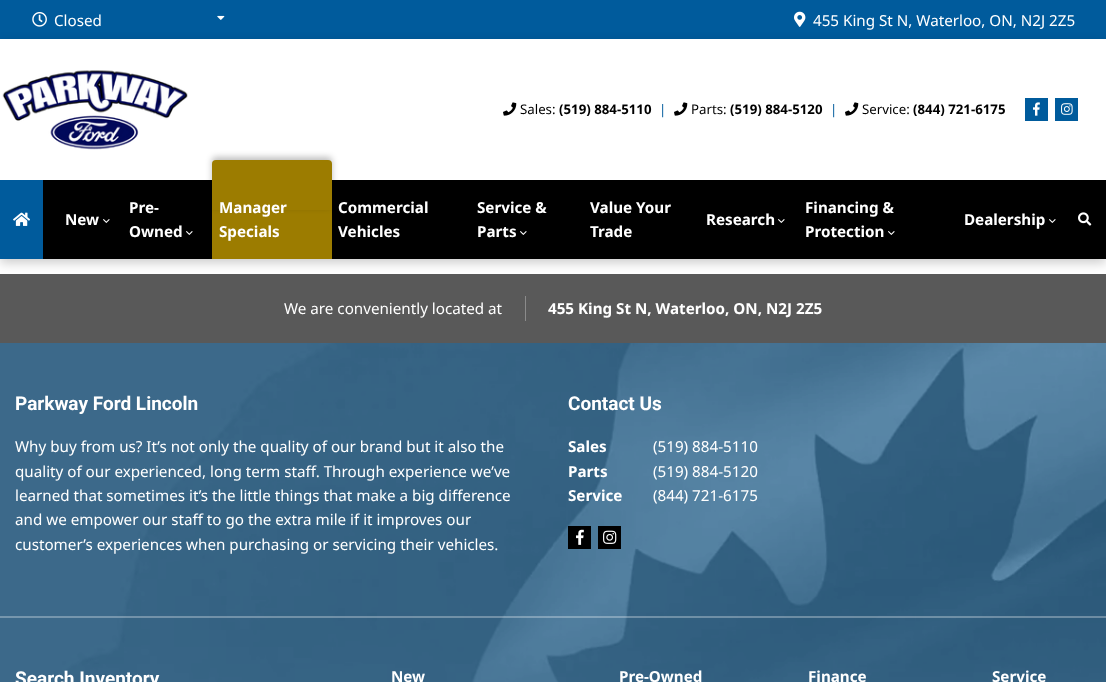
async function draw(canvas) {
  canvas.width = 1106;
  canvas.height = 682;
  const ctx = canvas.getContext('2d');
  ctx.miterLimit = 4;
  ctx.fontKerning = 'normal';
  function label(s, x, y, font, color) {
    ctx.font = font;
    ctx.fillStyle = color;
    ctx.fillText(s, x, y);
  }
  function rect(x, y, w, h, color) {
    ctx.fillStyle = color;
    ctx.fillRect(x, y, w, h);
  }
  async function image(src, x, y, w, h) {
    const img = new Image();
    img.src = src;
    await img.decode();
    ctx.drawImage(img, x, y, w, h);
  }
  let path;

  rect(0, 0, 1106, 682, '#fff');
  rect(0, 0, 1106, 39, '#005b9c');
  await image('assets/img1.png', 32, 12, 15, 15);
  await image('assets/img3.png', 794, 11, 12, 16);
  ctx.save();
  path = new Path2D('M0 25H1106V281H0ZM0 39H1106V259H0Z');
  ctx.clip(path, 'evenodd');
  ctx.fillStyle = '#00000033';
  ctx.filter = 'blur(5.5px)';
  ctx.beginPath();
  ctx.rect(0, 43, 1106, 220);
  ctx.fill();
  ctx.filter = 'none';
  ctx.restore();
  label('Closed', 54, 26, '15.2px Noto Sans', '#fff');
  await image('assets/img2.png', 217, 15, 8, 5);
  label('455 King St N, Waterloo, ON, N2J 2Z5', 813, 26, '15.2px Noto Sans', '#fff');
  await image('assets/img4.png', 2, 70, 186, 80);
  await image('assets/img5.png', 503, 102, 14, 14);
  label('Sales:', 520, 114, '13.25px Noto Sans', '#000');
  label('(519) 884-5110', 559, 114, 'bold 13.25px Noto Sans', '#000');
  label('|', 659, 114, '13.25px Noto Sans', '#005b9c');
  await image('assets/img5.png', 674, 102, 14, 14);
  label('Parts:', 691, 114, '13.25px Noto Sans', '#000');
  label('(519) 884-5120', 730, 114, 'bold 13.25px Noto Sans', '#000');
  label('|', 830, 114, '13.25px Noto Sans', '#005b9c');
  await image('assets/img5.png', 845, 102, 14, 14);
  label('Service:', 862, 114, '13.25px Noto Sans', '#000');
  label('(844) 721-6175', 913, 114, 'bold 13.25px Noto Sans', '#000');
  rect(1025, 98, 23, 23, '#005b9c');
  await image('assets/img6.png', 1033, 102, 7, 14);
  rect(1055, 98, 23, 23, '#005b9c');
  await image('assets/img7.png', 1061, 103, 12, 12);
  rect(43, 180, 1063, 79, '#000');
  rect(0, 180, 43, 79, '#005b9c');
  await image('assets/img8.png', 13, 212, 17, 14);
  label('New', 65, 225, 'bold 15.2px Noto Sans', '#fff');
  await image('assets/img9.png', 103, 219, 7, 4);
  label('Pre-', 129, 213, 'bold 15.2px Noto Sans', '#fff');
  label('Owned', 129, 237, 'bold 15.2px Noto Sans', '#fff');
  await image('assets/img9.png', 186, 231, 7, 4);
  rect(212, 210, 120, 49, '#9c7c00');
  ctx.fillStyle = '#00000040';
  ctx.filter = 'blur(3px)';
  ctx.beginPath();
  ctx.roundRect(212, 157, 120, 50, 4);
  ctx.fill();
  ctx.filter = 'none';
  ctx.fillStyle = '#9c7c00';
  ctx.beginPath();
  ctx.roundRect(212, 160, 120, 50, [4, 4, 0, 0]);
  ctx.fill();
  label('Manager', 219, 213, 'bold 15.2px Noto Sans', '#fff');
  label('Specials', 219, 237, 'bold 15.2px Noto Sans', '#fff');
  label('Commercial', 338, 213, 'bold 15.2px Noto Sans', '#fff');
  label('Vehicles', 338, 237, 'bold 15.2px Noto Sans', '#fff');
  label('Service &', 477, 213, 'bold 15.2px Noto Sans', '#fff');
  label('Parts', 477, 237, 'bold 15.2px Noto Sans', '#fff');
  await image('assets/img9.png', 520, 231, 7, 4);
  label('Value Your', 590, 213, 'bold 15.2px Noto Sans', '#fff');
  label('Trade', 590, 237, 'bold 15.2px Noto Sans', '#fff');
  label('Research', 706, 225, 'bold 15.2px Noto Sans', '#fff');
  await image('assets/img9.png', 778, 219, 7, 4);
  label('Financing &', 805, 213, 'bold 15.2px Noto Sans', '#fff');
  label('Protection', 805, 237, 'bold 15.2px Noto Sans', '#fff');
  await image('assets/img9.png', 888, 231, 7, 4);
  label('Dealership', 964, 225, 'bold 15.2px Noto Sans', '#fff');
  await image('assets/img9.png', 1049, 219, 7, 4);
  await image('assets/img10.png', 1078, 212, 14, 14);
  rect(0, 274, 1106, 69, '#595959');
  rect(525, 296, 1, 25, '#8b8b8b');
  label('We are conveniently located at', 284, 314, '15.2px Noto Sans', '#fff');
  label('455 King St N, Waterloo, ON, N2J 2Z5', 548, 314, 'bold 15.2px Noto Sans', '#fff');
  await image('assets/img11.png', 0, 343, 1106, 339);
  rect(0, 616, 1106, 2, '#ffffff4d');
  label('Parkway Ford Lincoln', 15, 410, 'bold 19px Roboto', '#fff');
  label('Why buy from us? It’s not only the quality of our brand but it also the', 15, 452, '15.2px Noto Sans', '#fff');
  label('quality of our experienced, long term staff. Through experience we’ve', 15, 477, '15.2px Noto Sans', '#fff');
  label('learned that sometimes it’s the little things that make a big difference', 15, 501, '15.2px Noto Sans', '#fff');
  label('and we empower our staff to go the extra mile if it improves our', 15, 525, '15.2px Noto Sans', '#fff');
  label('customer’s experiences when purchasing or servicing their vehicles.', 15, 550, '15.2px Noto Sans', '#fff');
  label('Contact Us', 568, 410, 'bold 19px Roboto', '#fff');
  label('Sales', 568, 452, 'bold 15.2px Noto Sans', '#fff');
  label('(519) 884-5110', 653, 452, '15.2px Noto Sans', '#fff');
  label('Parts', 568, 477, 'bold 15.2px Noto Sans', '#fff');
  label('(519) 884-5120', 653, 477, '15.2px Noto Sans', '#fff');
  label('Service', 568, 501, 'bold 15.2px Noto Sans', '#fff');
  label('(844) 721-6175', 653, 501, '15.2px Noto Sans', '#fff');
  rect(568, 526, 23, 23, '#000');
  await image('assets/img12.png', 576, 529, 8, 16);
  rect(598, 526, 23, 23, '#000');
  await image('assets/img13.png', 603, 530, 14, 14);
  label('Search Inventory', 15, 685, 'bold 19px Roboto', '#fff');
  label('New', 391, 682, 'bold 15.2px Noto Sans', '#fff');
  label('Pre-Owned', 619, 682, 'bold 15.2px Noto Sans', '#fff');
  label('Finance', 808, 682, 'bold 15.2px Noto Sans', '#fff');
  label('Service', 992, 682, 'bold 15.2px Noto Sans', '#fff');
}

draw(document.querySelector('canvas'));
